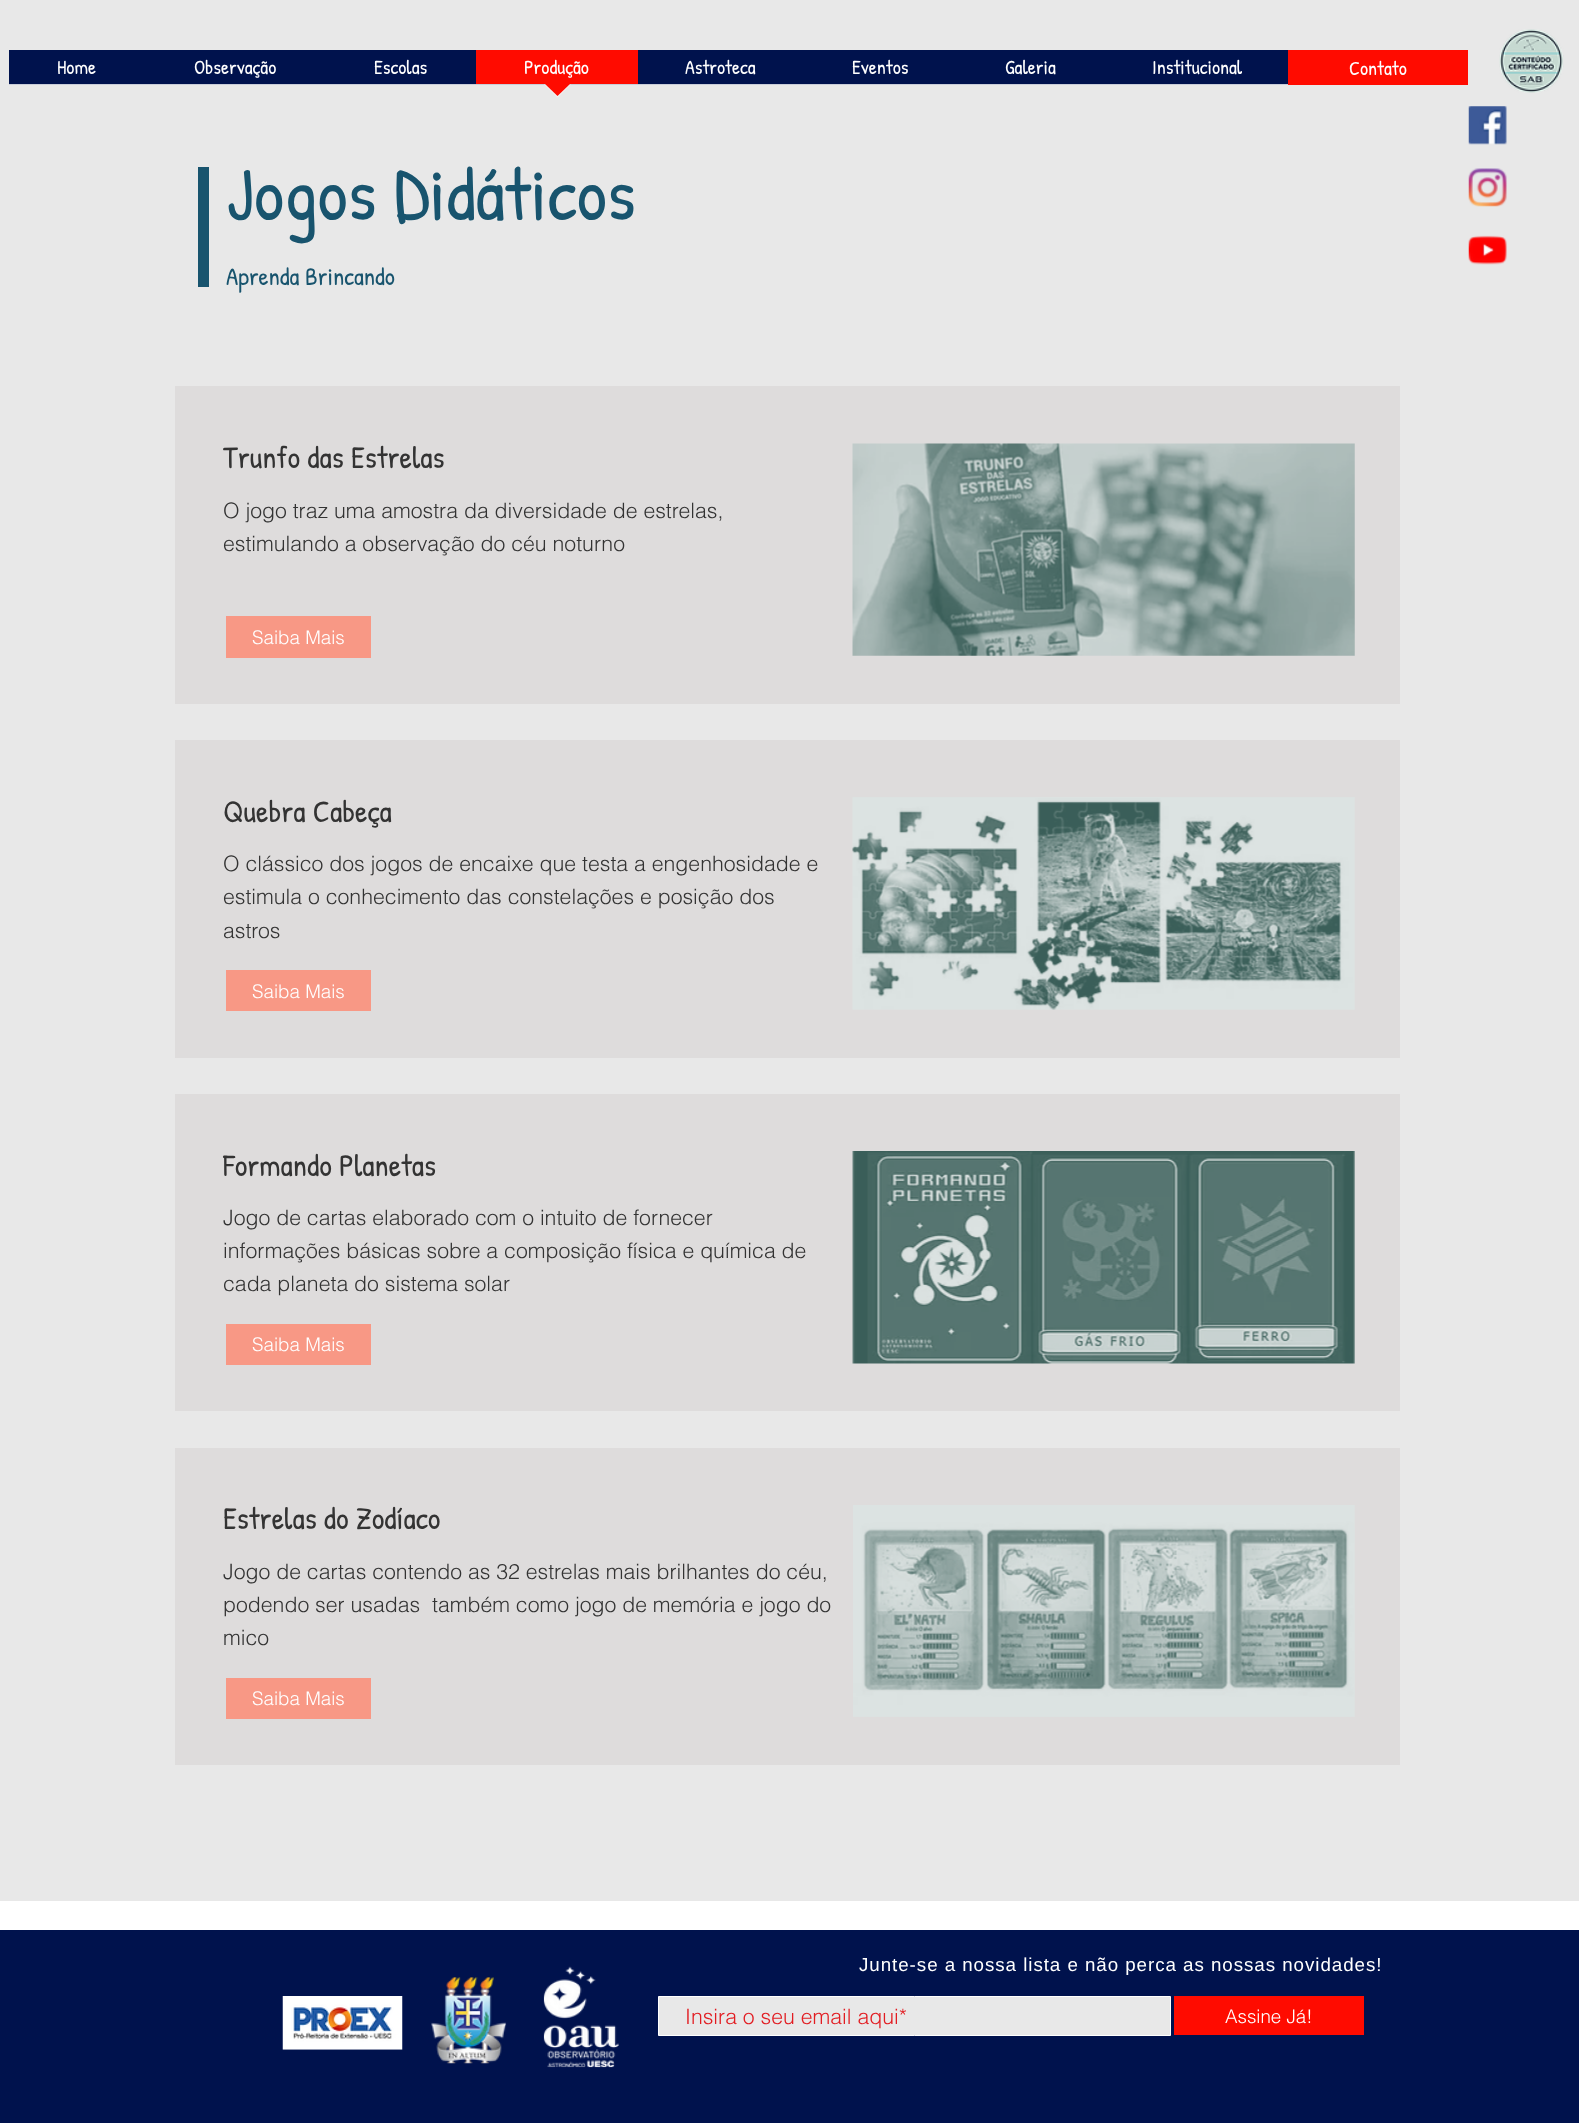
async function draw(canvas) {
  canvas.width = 1579;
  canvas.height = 2123;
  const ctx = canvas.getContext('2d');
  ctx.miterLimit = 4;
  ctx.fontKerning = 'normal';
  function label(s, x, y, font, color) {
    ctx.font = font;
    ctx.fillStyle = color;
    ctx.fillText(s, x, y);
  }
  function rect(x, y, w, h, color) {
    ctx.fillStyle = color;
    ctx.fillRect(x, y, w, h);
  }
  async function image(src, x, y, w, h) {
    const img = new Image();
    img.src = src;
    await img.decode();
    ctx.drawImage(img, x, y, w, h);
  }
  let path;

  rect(0, 0, 1579, 2123, '#e8e8e8');
  rect(9, 50, 1279, 34, '#00124d');
  label('Home', 57, 74, '20px Patrick Hand', '#fff');
  rect(9, 84, 1281, 1, '#c9cdd9');
  label('Observação', 194, 74, '20px Patrick Hand', '#fff');
  label('Escolas', 374, 74, '20px Patrick Hand', '#fff');
  rect(476, 50, 162, 34, '#ff0b00');
  label('Produção', 524, 74, '20px Patrick Hand', '#fff');
  ctx.fillStyle = '#ffffff8a';
  path = new Path2D('M544 84H571L557.5 97.5Z');
  ctx.fill(path);
  ctx.fillStyle = '#ff0b00';
  path = new Path2D('M545 84H570L557.5 96Z');
  ctx.fill(path);
  label('Astroteca', 685, 74, '20px Patrick Hand', '#fff');
  label('Eventos', 852, 74, '20px Patrick Hand', '#fff');
  label('Galeria', 1005, 74, '20px Patrick Hand', '#fff');
  label('Institucional', 1152, 74, '20px Patrick Hand', '#fff');
  rect(1288, 50, 180, 35, '#ff0b00');
  label('Contato', 1349, 75, '20px Patrick Hand', '#fff');
  await image('assets/img1.png', 1499, 29, 65, 64);
  rect(198, 167, 11, 120, '#18546e');
  label('Jogos Didáticos', 226, 220, '75px Patrick Hand', '#18546e');
  label('Aprenda Brincando', 226, 285, '25px Patrick Hand', '#18546e');
  rect(175, 386, 1225, 318, '#dedcdc');
  label('Trunfo das Estrelas', 223, 468, '31.25px Patrick Hand', '#333');
  await image('assets/img2.png', 852, 443, 503, 213);
  label('O jogo traz uma amostra da diversidade de estrelas,', 223, 518, '300 21.25px helvetica', '#333');
  label('estimulando a observação do céu noturno', 223, 551, '300 21.25px helvetica', '#333');
  rect(226, 616, 145, 42, '#f89885');
  label('Saiba Mais', 252, 644, '300 18.75px helvetica', '#fff');
  rect(175, 740, 1225, 318, '#dedcdc');
  label('Quebra Cabeça', 223, 822, '31.25px Patrick Hand', '#333');
  await image('assets/img3.png', 852, 797, 503, 213);
  label('O clássico dos jogos de encaixe que testa a engenhosidade e', 223, 871, '300 21.25px helvetica', '#333');
  label('estimula o conhecimento das constelações e posição dos', 223, 904, '300 21.25px helvetica', '#333');
  label('astros', 223, 938, '300 21.25px helvetica', '#333');
  rect(226, 970, 145, 41, '#f89885');
  label('Saiba Mais', 252, 998, '300 18.75px helvetica', '#fff');
  rect(175, 1094, 1225, 317, '#dedcdc');
  label('Formando Planetas', 223, 1176, '31.25px Patrick Hand', '#333');
  await image('assets/img4.png', 852, 1151, 503, 213);
  label('Jogo de cartas elaborado com o intuito de fornecer', 223, 1225, '300 21.25px helvetica', '#333');
  label('informações básicas sobre a composição física e química de', 223, 1258, '300 21.25px helvetica', '#333');
  label('cada planeta do sistema solar', 223, 1291, '300 21.25px helvetica', '#333');
  rect(226, 1324, 145, 41, '#f89885');
  label('Saiba Mais', 252, 1351, '300 18.75px helvetica', '#fff');
  rect(175, 1448, 1225, 317, '#dedcdc');
  label('Estrelas do Zodíaco', 223, 1529, '31.25px Patrick Hand', '#333');
  await image('assets/img5.png', 853, 1505, 502, 212);
  label('Jogo de cartas contendo as 32 estrelas mais brilhantes do céu,', 223, 1579, '300 21.25px helvetica', '#333');
  label('podendo ser usadas  também como jogo de memória e jogo do', 223, 1612, '300 21.25px helvetica', '#333');
  label('mico', 223, 1645, '300 21.25px helvetica', '#333');
  rect(226, 1678, 145, 41, '#f89885');
  label('Saiba Mais', 252, 1705, '300 18.75px helvetica', '#fff');
  await image('assets/img6.png', 1468, 106, 39, 39);
  await image('assets/img7.png', 1468, 168, 39, 39);
  await image('assets/img8.png', 1468, 235, 39, 30);
  rect(0, 1901, 1579, 29, '#fff');
  rect(0, 1930, 1579, 193, '#00124d');
  await image('assets/img9.png', 282, 1996, 121, 54);
  await image('assets/img10.png', 431, 1977, 76, 87);
  await image('assets/img11.png', 543, 1966, 76, 102);
  ctx.fillStyle = '#e8e8e8';
  ctx.beginPath();
  ctx.rect(658.5, 1996.5, 512, 39);
  ctx.fill();
  ctx.strokeStyle = '#fff';
  ctx.stroke();
  label('Insira o seu email aqui*', 685, 2024, '300 21.25px helvetica', '#e21c21');
  ctx.letterSpacing = '0.95px';
  label('Junte-se a nossa lista e não perca as nossas novidades!', 859, 1971, '18.75px Liberation Sans', '#fff');
  rect(1174, 1996, 190, 39, '#ff0b00');
  ctx.letterSpacing = '0px';
  label('Assine Já!', 1225, 2023, '300 18.75px helvetica', '#fff');
}

draw(document.querySelector('canvas'));
